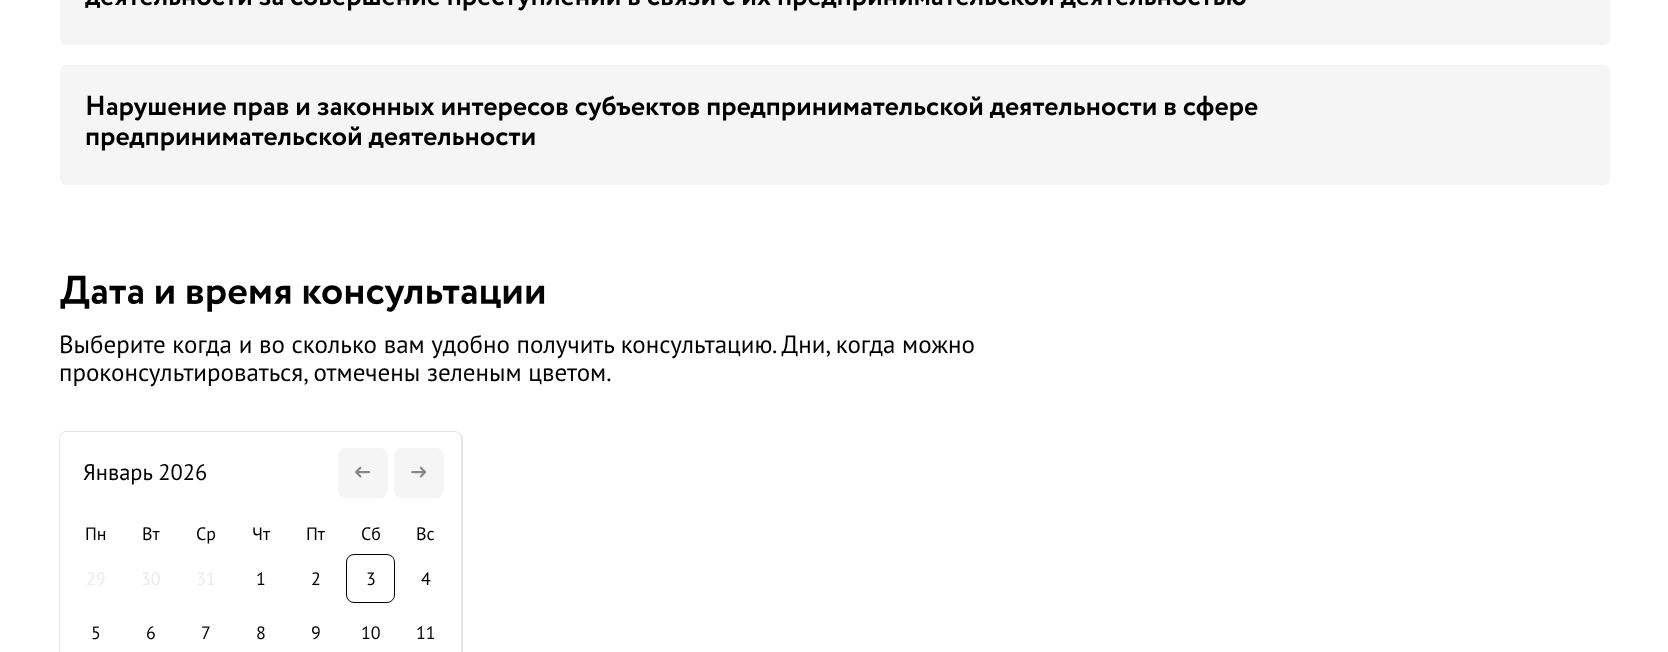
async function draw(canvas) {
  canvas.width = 1668;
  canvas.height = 652;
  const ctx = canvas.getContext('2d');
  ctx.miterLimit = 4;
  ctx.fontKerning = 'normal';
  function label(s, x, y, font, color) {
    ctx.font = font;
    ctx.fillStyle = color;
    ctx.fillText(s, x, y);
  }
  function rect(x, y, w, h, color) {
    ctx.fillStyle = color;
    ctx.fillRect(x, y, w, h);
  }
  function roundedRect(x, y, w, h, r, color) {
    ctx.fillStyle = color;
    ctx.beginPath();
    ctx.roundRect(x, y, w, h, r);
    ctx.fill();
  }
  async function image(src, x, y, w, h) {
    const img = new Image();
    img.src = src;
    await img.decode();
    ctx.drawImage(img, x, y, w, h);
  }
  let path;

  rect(0, 0, 1668, 652, '#fff');
  roundedRect(60, -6, 1550, 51, 6, '#f5f5f5');
  await image('assets/img1.png', 85, 0, 1161, 11);
  roundedRect(60, 65, 1550, 120, 6, '#f5f5f5');
  await image('assets/img2.png', 87, 95, 1171, 26);
  await image('assets/img3.png', 86, 126, 449, 25);
  await image('assets/img4.png', 60, 275, 485, 37);
  label('Выберите когда и во сколько вам удобно получить консультацию. Дни, когда можно', 59, 353, '25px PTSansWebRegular', '#000');
  label('проконсультироваться, отмечены зеленым цветом.', 59, 381, '25px PTSansWebRegular', '#000');
  ctx.fillStyle = '#e6e6e6';
  path = new Path2D('M66 431C61 431 60 435 60 439C60 435 63 432 66 432H455C458 432 460 434 461 437C461 434 458 431 455 431Z');
  ctx.fill(path);
  path = new Path2D('M63 433C61 434 59 436 59 439V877C59 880 62 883 65 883H454L457 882H455H66C63 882 60 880 60 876V439C60 436 61 434 63 433Z');
  ctx.fill(path);
  path = new Path2D('M63 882C64 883 66 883 67 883H457C460 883 463 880 463 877V439C463 436 461 433 458 433C460 434 461 436 461 439V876C461 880 458 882 455 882H66Z');
  ctx.fill(path);
  roundedRect(60, 433, 401, 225, 6, '#fff');
  label('Январь 2026', 83, 480, '22.5px PTSansWebRegular', '#000');
  roundedRect(338, 448, 50, 50, 8, '#f5f5f5');
  await image('assets/img5.png', 355, 466, 15, 12);
  roundedRect(394, 448, 50, 50, 8, '#f5f5f5');
  await image('assets/img6.png', 411, 466, 16, 12);
  label('Пн', 85, 540, '18px PTSansWebRegular', '#000');
  label('Вт', 142, 540, '18px PTSansWebRegular', '#000');
  label('Ср', 196, 540, '18px PTSansWebRegular', '#000');
  label('Чт', 252, 540, '18px PTSansWebRegular', '#000');
  label('Пт', 306, 540, '18px PTSansWebRegular', '#000');
  label('Сб', 361, 540, '18px PTSansWebRegular', '#000');
  label('Вс', 416, 540, '18px PTSansWebRegular', '#000');
  label('29', 86, 585, '18px PTSansWebRegular', '#ebebeb');
  label('30', 141, 585, '18px PTSansWebRegular', '#ebebeb');
  label('31', 196, 585, '18px PTSansWebRegular', '#ebebeb');
  label('1', 256, 585, '18px PTSansWebRegular', '#000');
  label('2', 311, 585, '18px PTSansWebRegular', '#000');
  ctx.beginPath();
  ctx.roundRect(346.5, 554.5, 48, 48, 7.5);
  ctx.strokeStyle = '#000';
  ctx.stroke();
  label('3', 366, 585, '18px PTSansWebRegular', '#000');
  label('4', 421, 585, '18px PTSansWebRegular', '#000');
  label('5', 91, 639, '18px PTSansWebRegular', '#000');
  label('6', 146, 639, '18px PTSansWebRegular', '#000');
  label('7', 201, 639, '18px PTSansWebRegular', '#000');
  label('8', 256, 639, '18px PTSansWebRegular', '#000');
  label('9', 311, 639, '18px PTSansWebRegular', '#000');
  label('10', 361, 639, '18px PTSansWebRegular', '#000');
  label('11', 416, 639, '18px PTSansWebRegular', '#000');
}

draw(document.querySelector('canvas'));
